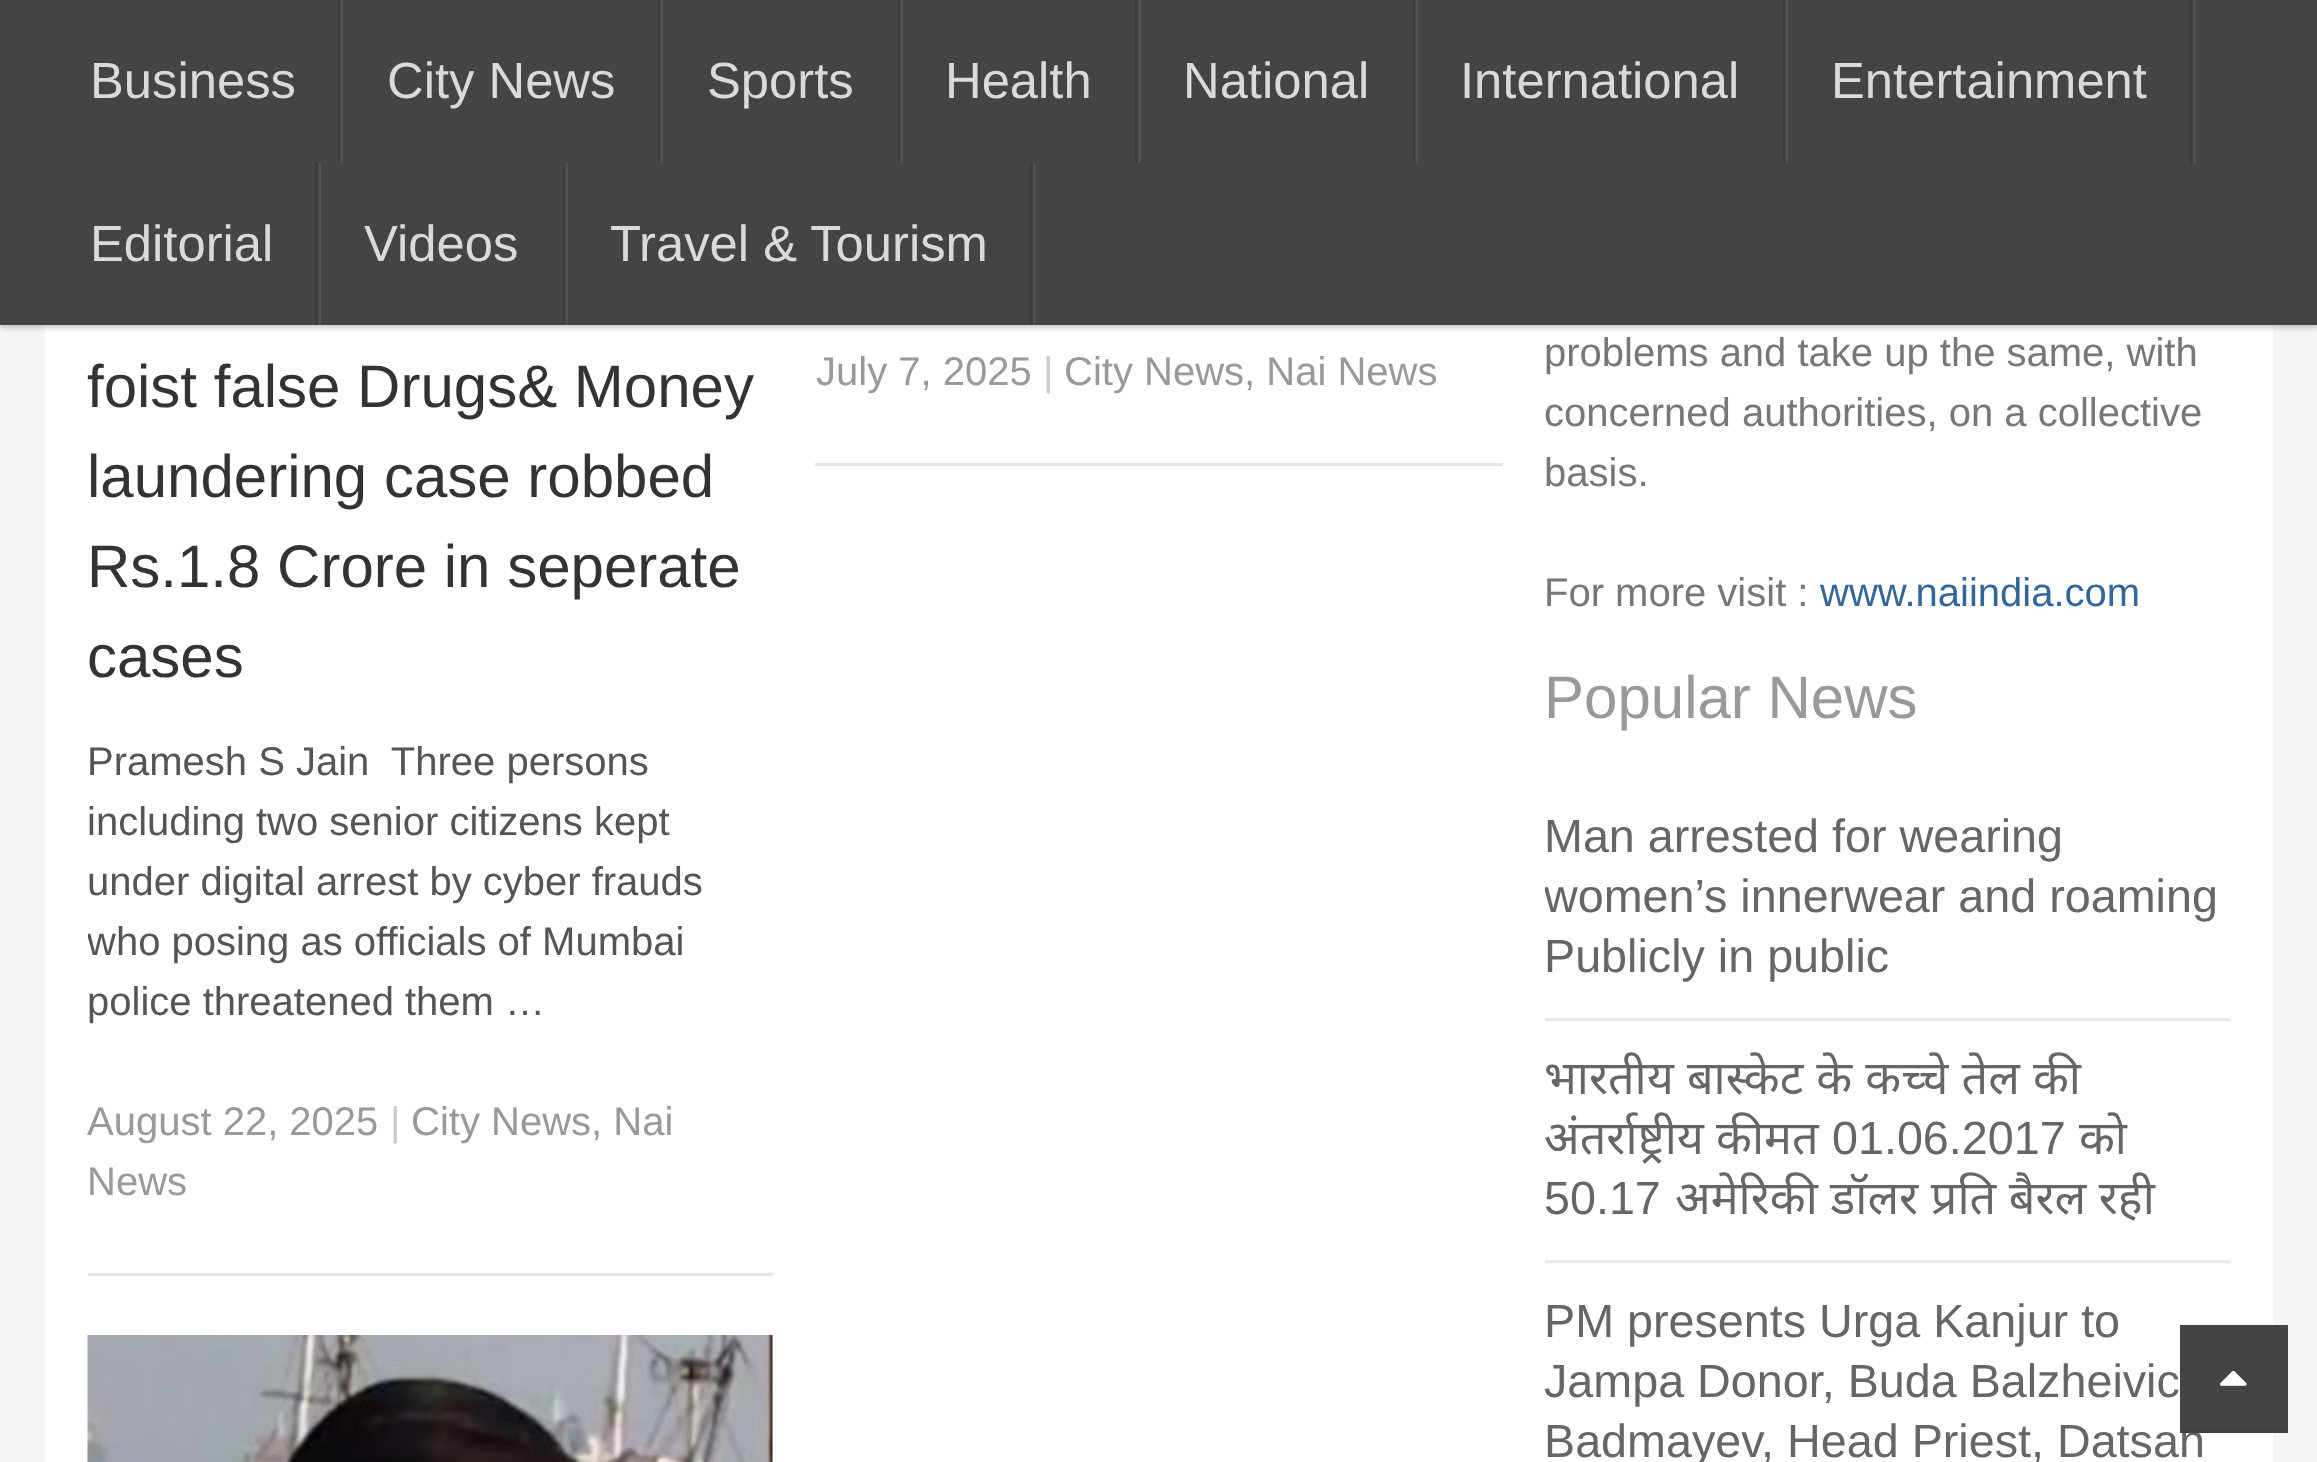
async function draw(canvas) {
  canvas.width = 2317;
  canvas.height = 1462;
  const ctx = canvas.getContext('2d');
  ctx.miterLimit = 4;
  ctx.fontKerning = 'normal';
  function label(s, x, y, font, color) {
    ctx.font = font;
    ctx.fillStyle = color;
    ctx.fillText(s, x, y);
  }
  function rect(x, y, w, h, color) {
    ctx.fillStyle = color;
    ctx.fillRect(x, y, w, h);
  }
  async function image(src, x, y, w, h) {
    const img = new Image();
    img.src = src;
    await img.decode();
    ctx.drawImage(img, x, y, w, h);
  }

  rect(0, 0, 2317, 1462, '#f5f5f5');
  rect(45, 325, 2228, 1137, '#fff');
  ctx.fillStyle = '#00000033';
  ctx.filter = 'blur(2.5px)';
  ctx.beginPath();
  ctx.rect(0, 3, 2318, 325);
  ctx.fill();
  ctx.filter = 'none';
  rect(0, 0, 2317, 325, '#444');
  rect(340, 0, 3, 163, '#515151');
  rect(338, 0, 3, 163, '#0000001a');
  label('Business', 90, 98, '50.75px Liberation Sans', '#dadada');
  rect(660, 0, 3, 163, '#515151');
  rect(658, 0, 3, 163, '#0000001a');
  label('City News', 387, 98, '50.75px Liberation Sans', '#dadada');
  rect(900, 0, 3, 163, '#515151');
  rect(898, 0, 3, 163, '#0000001a');
  label('Sports', 707, 98, '50.75px Liberation Sans', '#dadada');
  rect(1138, 0, 3, 163, '#515151');
  rect(1135, 0, 3, 163, '#3d3d3d');
  label('Health', 945, 98, '50.75px Liberation Sans', '#dadada');
  rect(1415, 0, 3, 163, '#515151');
  rect(1413, 0, 3, 163, '#0000001a');
  label('National', 1183, 98, '50.75px Liberation Sans', '#dadada');
  rect(1785, 0, 3, 163, '#515151');
  rect(1783, 0, 3, 163, '#0000001a');
  label('International', 1460, 98, '50.75px Liberation Sans', '#dadada');
  rect(2193, 0, 3, 163, '#515151');
  rect(2190, 0, 3, 163, '#3d3d3d');
  label('Entertainment', 1831, 98, '50.75px Liberation Sans', '#dadada');
  rect(318, 163, 3, 162, '#515151');
  rect(315, 163, 3, 162, '#3d3d3d');
  label('Editorial', 90, 261, '50.75px Liberation Sans', '#dadada');
  rect(565, 163, 3, 162, '#515151');
  rect(563, 163, 3, 162, '#0000001a');
  label('Videos', 364, 261, '50.75px Liberation Sans', '#dadada');
  rect(1033, 163, 3, 162, '#515151');
  rect(1030, 163, 3, 162, '#3d3d3d');
  label('Travel & Tourism', 610, 261, '50.75px Liberation Sans', '#dadada');
  rect(88, 1273, 685, 3, '#e5e5e5');
  label('foist false Drugs& Money', 87, 407, '60px Liberation Sans', '#333');
  label('laundering case robbed', 87, 497, '60px Liberation Sans', '#333');
  label('Rs.1.8 Crore in seperate', 87, 587, '60px Liberation Sans', '#333');
  label('cases', 87, 677, '60px Liberation Sans', '#333');
  label('Pramesh S Jain  Three persons', 87, 775, '40px Liberation Sans', '#555');
  label('including two senior citizens kept', 87, 835, '40px Liberation Sans', '#555');
  label('under digital arrest by cyber frauds', 87, 895, '40px Liberation Sans', '#555');
  ctx.save();
  ctx.beginPath();
  ctx.rect(88, 0, 685, 1273);
  ctx.clip();
  label('who posing as officials of Mumbai', 87, 955, '40px Liberation Sans', '#555');
  ctx.restore();
  label('police threatened them …', 87, 1015, '40px Liberation Sans', '#555');
  label('August 22, 2025', 87, 1135, '40px Liberation Sans', '#999');
  label('|', 390, 1135, '40px Liberation Sans', '#ccc');
  label('City News, Nai', 411, 1135, '40px Liberation Sans', '#999');
  label('News', 87, 1195, '40px Liberation Sans', '#999');
  rect(815, 463, 688, 3, '#e5e5e5');
  label('July 7, 2025', 816, 385, '40px Liberation Sans', '#999');
  label('|', 1043, 385, '40px Liberation Sans', '#ccc');
  label('City News, Nai News', 1064, 385, '40px Liberation Sans', '#999');
  await image('assets/img1.png', 87, 1335, 686, 127);
  label('problems and take up the same, with', 1544, 366, '40px Liberation Sans', '#777');
  label('concerned authorities, on a collective', 1544, 426, '40px Liberation Sans', '#777');
  label('basis.', 1544, 486, '40px Liberation Sans', '#777');
  label('For more visit :', 1544, 606, '40px Liberation Sans', '#777');
  label('www.naiindia.com', 1820, 606, '40px Liberation Sans', '#369');
  label('Popular News', 1544, 718, '60px Liberation Sans', '#999');
  rect(1545, 1018, 685, 3, '#e9e9e9');
  label('Man arrested for wearing', 1544, 852, '46.7px Liberation Sans', '#666');
  ctx.save();
  ctx.beginPath();
  ctx.rect(1545, 778, 685, 240);
  ctx.clip();
  label('women’s innerwear and roaming', 1544, 912, '46.7px Liberation Sans', '#666');
  ctx.restore();
  label('Publicly in public', 1544, 972, '46.7px Liberation Sans', '#666');
  rect(1545, 1260, 685, 3, '#e9e9e9');
  ctx.save();
  ctx.beginPath();
  ctx.rect(1545, 1020, 685, 240);
  ctx.clip();
  ctx.wordSpacing = '1px';
  label('भारतीय बास्केट के कच्चे तेल की', 1544, 1094, '46.7px Noto Sans', '#666');
  ctx.wordSpacing = '0px';
  label('अंतर्राष्ट्रीय कीमत', 1544, 1154, '46.7px Noto Sans', '#666');
  ctx.restore();
  label('01.06.2017', 1832, 1154, '46.7px Liberation Sans', '#666');
  label('को', 2079, 1154, '46.7px Noto Sans', '#666');
  label('50.17', 1544, 1214, '46.7px Liberation Sans', '#666');
  ctx.wordSpacing = '0.5px';
  label('अमेरिकी डॉलर प्रति बैरल रही', 1675, 1214, '46.7px Noto Sans', '#666');
  ctx.wordSpacing = '0px';
  label('PM presents Urga Kanjur to', 1544, 1337, '46.7px Liberation Sans', '#666');
  label('Jampa Donor, Buda Balzheivic', 1544, 1397, '46.7px Liberation Sans', '#666');
  label('Badmayev, Head Priest, Datsan', 1544, 1457, '46.7px Liberation Sans', '#666');
  rect(2180, 1325, 108, 105, '#444');
  rect(2180, 1430, 108, 3, '#3f3f3f');
  await image('assets/img2.png', 2220, 1370, 27, 16);
}

draw(document.querySelector('canvas'));
